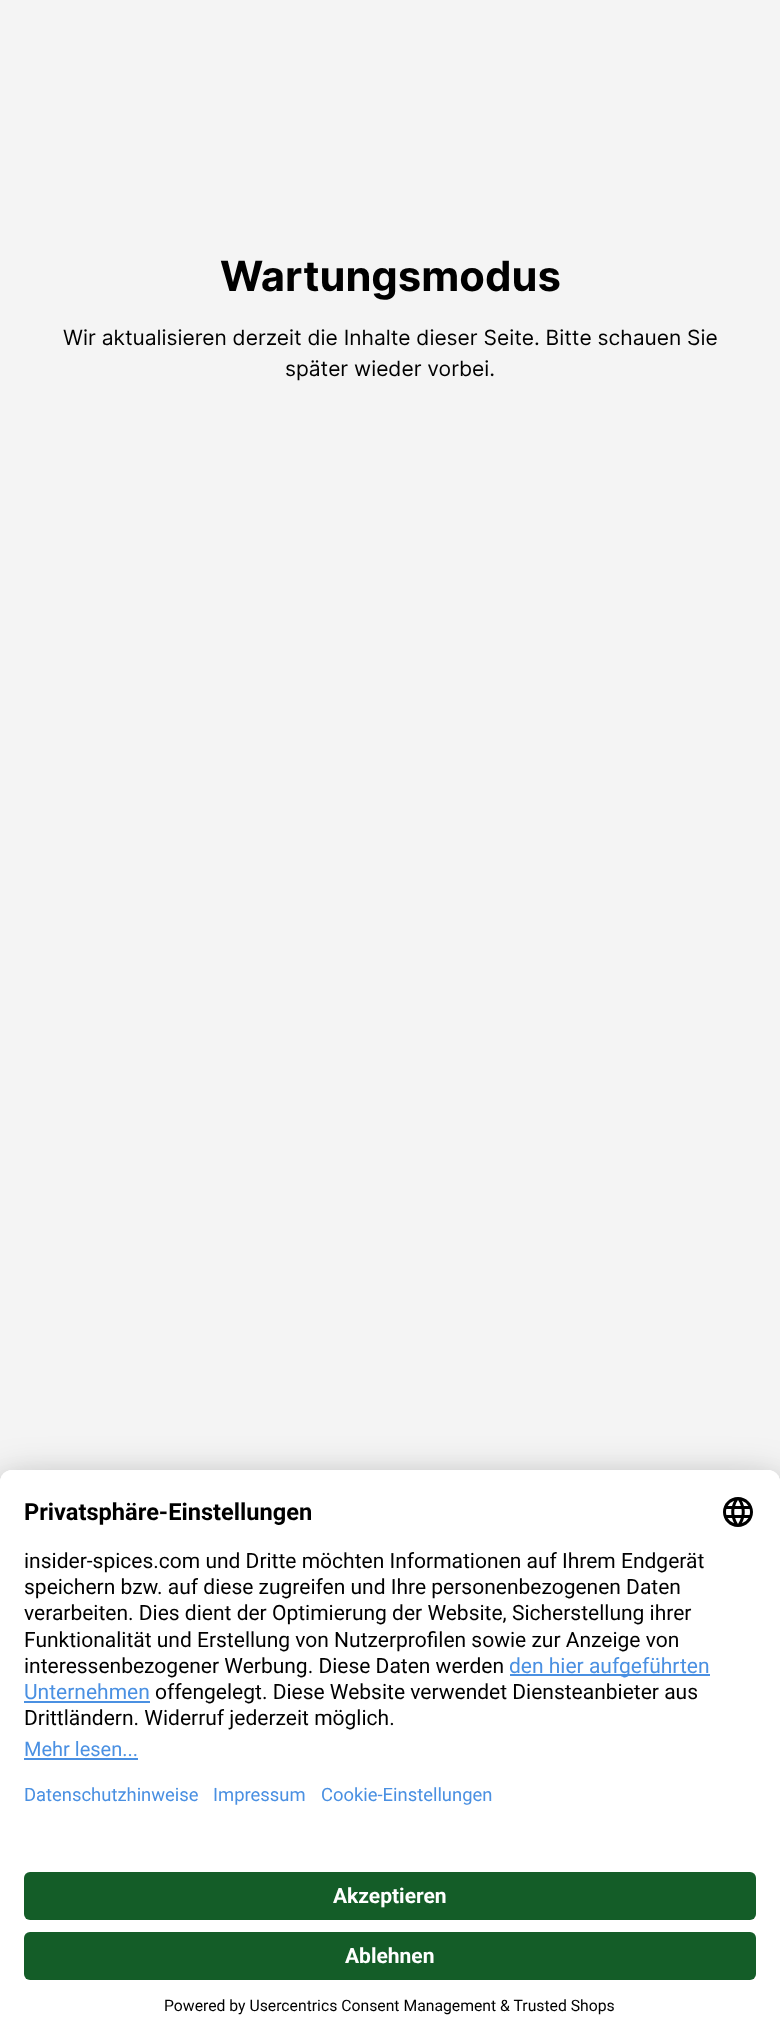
async function draw(canvas) {
  canvas.width = 780;
  canvas.height = 2039;
  const ctx = canvas.getContext('2d');
  ctx.miterLimit = 4;
  ctx.fontKerning = 'normal';
  function label(s, x, y, font, color) {
    ctx.font = font;
    ctx.fillStyle = color;
    ctx.fillText(s, x, y);
  }
  function rect(x, y, w, h, color) {
    ctx.fillStyle = color;
    ctx.fillRect(x, y, w, h);
  }
  function roundedRect(x, y, w, h, r, color) {
    ctx.fillStyle = color;
    ctx.beginPath();
    ctx.roundRect(x, y, w, h, r);
    ctx.fill();
  }
  async function image(src, x, y, w, h) {
    const img = new Image();
    img.src = src;
    await img.decode();
    ctx.drawImage(img, x, y, w, h);
  }
  let path;

  rect(0, 0, 780, 2039, '#f4f4f4');
  label('Wartungsmodus', 220, 291, 'bold 41.75px Inter', '#000');
  label('Wir aktualisieren derzeit die Inhalte dieser Seite. Bitte schauen Sie', 63, 345, '21px Inter', '#000');
  label('später wieder vorbei.', 285, 376, '21px Inter', '#000');
  ctx.fillStyle = '#0000004d';
  ctx.filter = 'blur(21px)';
  ctx.beginPath();
  ctx.roundRect(0, 1500, 780, 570, 12);
  ctx.fill();
  ctx.filter = 'none';
  ctx.fillStyle = '#00000038';
  ctx.filter = 'blur(19.5px)';
  ctx.beginPath();
  ctx.roundRect(0, 1478, 780, 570, 12);
  ctx.fill();
  ctx.filter = 'none';
  ctx.fillStyle = '#fff';
  path = new Path2D('M12 1470H768C774.5 1470 780 1475.5 780 1482V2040H0V1482C0 1475.5 5.5 1470 12 1470Z');
  ctx.fill(path);
  ctx.beginPath();
  ctx.roundRect(0, 1470, 780, 384, [12, 12, 0, 0]);
  ctx.fill();
  label('Privatsphäre-Einstellungen', 24, 1520, 'bold 23.6px Roboto', '#000');
  await image('assets/img1.png', 723, 1497, 30, 30);
  label('insider-spices.com und Dritte möchten Informationen auf Ihrem Endgerät', 24, 1568, '21px Roboto', '#000');
  label('speichern bzw. auf diese zugreifen und Ihre personenbezogenen Daten', 24, 1594, '21px Roboto', '#000');
  label('verarbeiten. Dies dient der Optimierung der Website, Sicherstellung ihrer', 24, 1620, '21px Roboto', '#000');
  label('Funktionalität und Erstellung von Nutzerprofilen sowie zur Anzeige von', 24, 1647, '21px Roboto', '#000');
  label('interessenbezogener Werbung. Diese Daten werden', 24, 1673, '21px Roboto', '#000');
  rect(510, 1674, 200, 2, '#4a90e2');
  label('den hier aufgeführten', 509, 1673, '21px Roboto', '#4a90e2');
  label('Unternehmen', 24, 1699, '21px Roboto', '#4a90e2');
  rect(24, 1701, 126, 2, '#4a90e2');
  label('offengelegt. Diese Website verwendet Diensteanbieter aus', 155, 1699, '21px Roboto', '#000');
  label('Drittländern. Widerruf jederzeit möglich.', 24, 1725, '21px Roboto', '#000');
  label('Mehr lesen...', 24, 1756, '20px Roboto', '#4a90e2');
  rect(24, 1758, 114, 2, '#4a90e2');
  label('Datenschutzhinweise', 24, 1801, '18.4px Roboto', '#4a90e2');
  label('Impressum', 213, 1801, '18.4px Roboto', '#4a90e2');
  label('Cookie-Einstellungen', 321, 1801, '18.4px Roboto', '#4a90e2');
  roundedRect(24, 1872, 732, 48, 6, '#145d28');
  label('Akzeptieren', 333, 1903, 'bold 21px Roboto', '#fefefe');
  roundedRect(24, 1932, 732, 48, 6, '#145d28');
  label('Ablehnen', 345, 1963, 'bold 21px Roboto', '#fefefe');
  label('Powered by Usercentrics Consent Management & Trusted Shops', 164, 2011, '15.75px Roboto', '#000');
}

draw(document.querySelector('canvas'));
